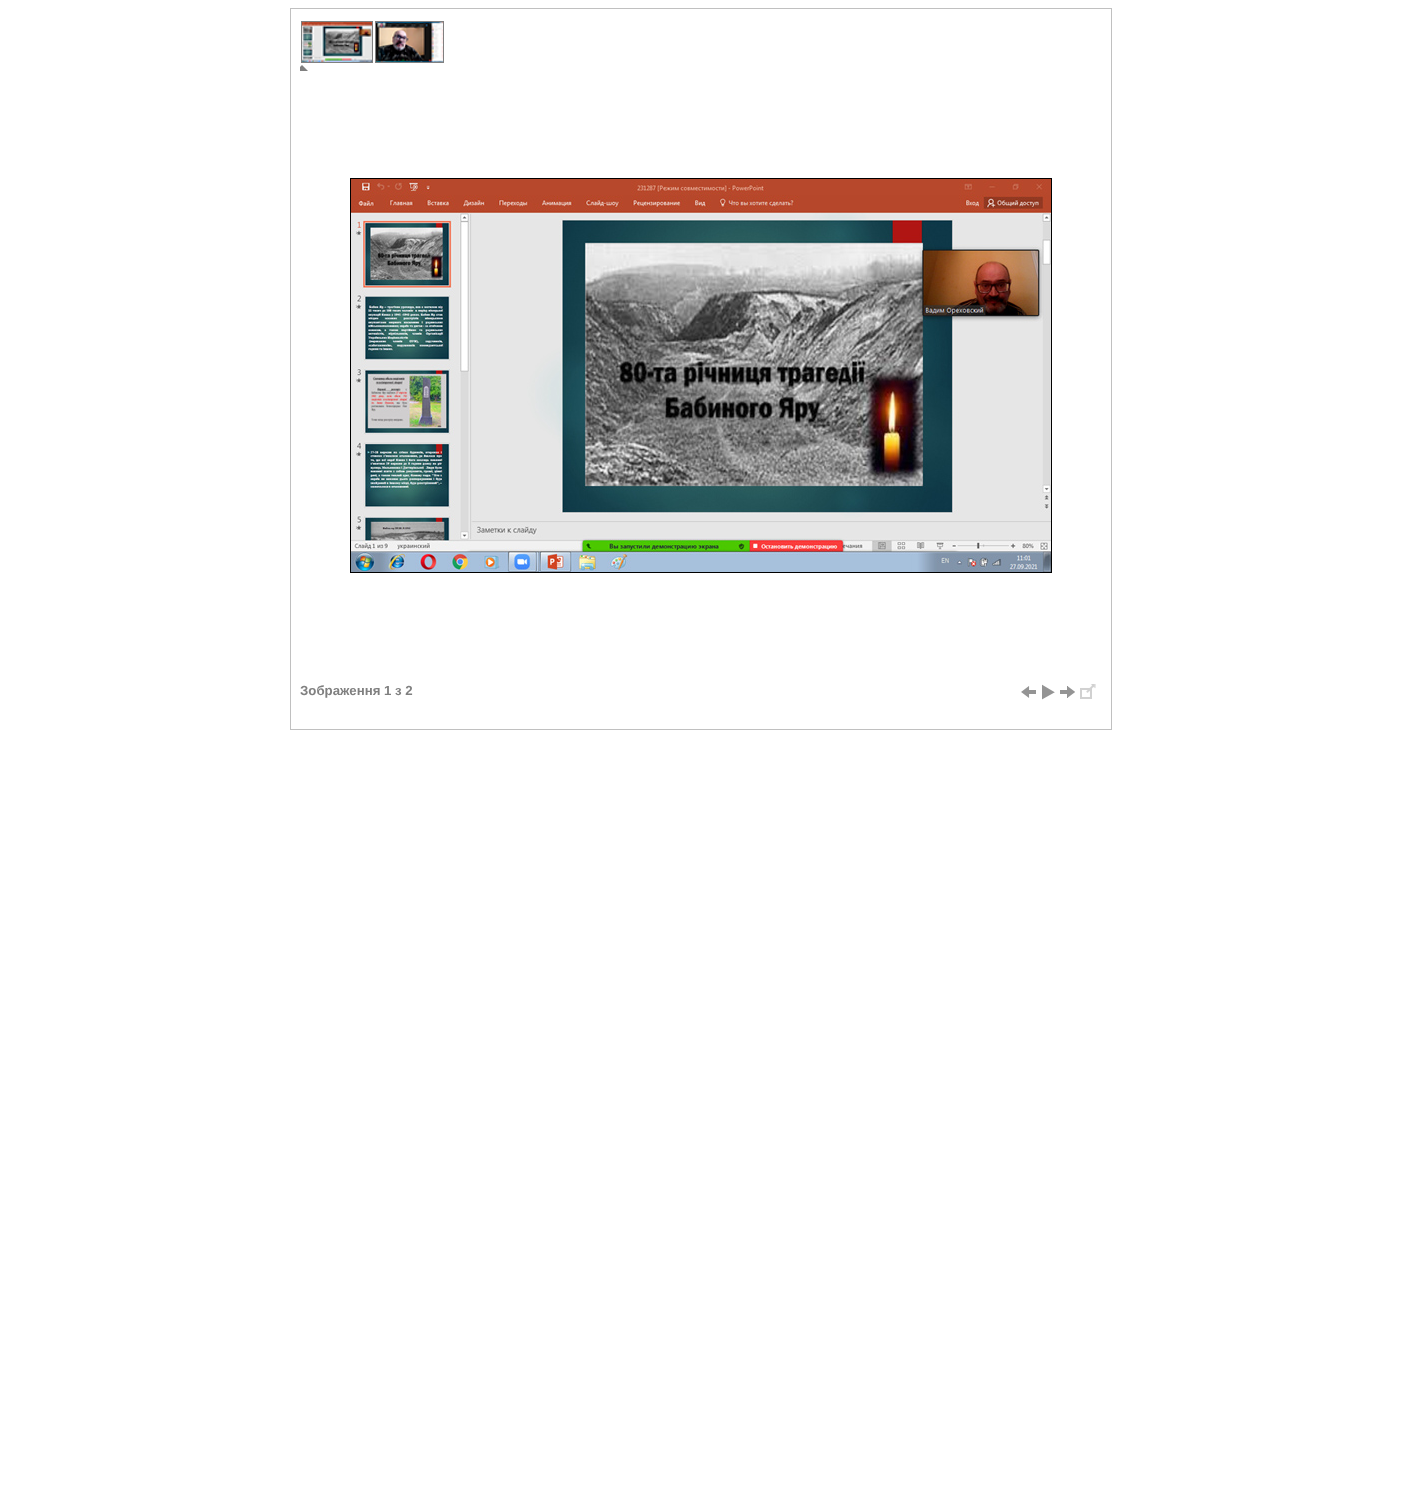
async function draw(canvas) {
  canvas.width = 1401;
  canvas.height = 1510;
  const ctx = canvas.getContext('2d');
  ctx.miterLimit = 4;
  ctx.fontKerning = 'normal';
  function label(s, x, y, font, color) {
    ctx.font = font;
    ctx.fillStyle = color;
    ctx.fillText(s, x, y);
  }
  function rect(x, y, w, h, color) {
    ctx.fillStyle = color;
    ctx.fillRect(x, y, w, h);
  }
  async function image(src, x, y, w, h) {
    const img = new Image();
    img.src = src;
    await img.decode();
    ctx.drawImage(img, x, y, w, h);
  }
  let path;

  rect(0, 0, 1401, 1510, '#fff');
  ctx.strokeStyle = '#c0c0c0';
  ctx.strokeRect(290.5, 8.5, 821, 721);
  ctx.strokeStyle = '#000';
  ctx.strokeRect(350.5, 178.5, 701, 394);
  await image('assets/img1.png', 351, 179, 700, 393);
  ctx.strokeStyle = '#808080';
  ctx.strokeRect(301.5, 21.5, 71, 41);
  await image('assets/img2.png', 302, 22, 70, 40);
  ctx.strokeRect(375.5, 21.5, 68, 41);
  await image('assets/img3.png', 376, 22, 67, 40);
  ctx.save();
  ctx.beginPath();
  ctx.rect(300, 18, 802, 56);
  ctx.clip();
  ctx.fillStyle = '#808080';
  path = new Path2D('M308 71H296L302 65Z');
  ctx.fill(path);
  ctx.restore();
  label('Зображення 1 з 2', 300, 695, 'bold 13.25px Liberation Sans', '#808080');
  await image('assets/img4.png', 1021, 686, 15, 12);
  await image('assets/img5.png', 1042, 684, 13, 16);
  await image('assets/img6.png', 1060, 686, 15, 12);
  await image('assets/img7.png', 1080, 684, 16, 15);
}

draw(document.querySelector('canvas'));
